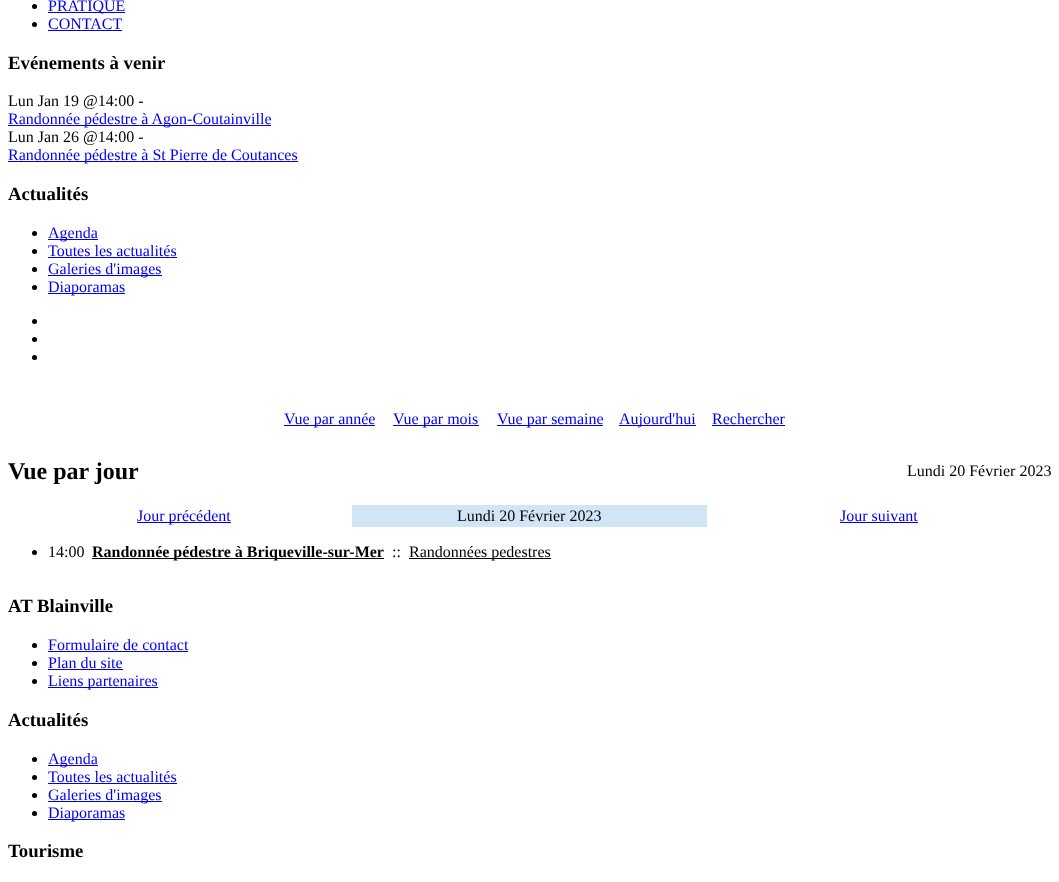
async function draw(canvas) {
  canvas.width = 1059;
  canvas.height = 882;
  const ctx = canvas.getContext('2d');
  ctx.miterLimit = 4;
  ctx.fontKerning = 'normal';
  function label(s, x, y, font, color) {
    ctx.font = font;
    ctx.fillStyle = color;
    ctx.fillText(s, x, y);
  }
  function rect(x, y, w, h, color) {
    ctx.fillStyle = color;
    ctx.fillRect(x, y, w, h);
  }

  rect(0, 0, 1059, 882, '#fff');
  ctx.fillStyle = '#000';
  ctx.beginPath();
  ctx.arc(34.5, 6.5, 2.5, 0, 2 * Math.PI);
  ctx.fill();
  rect(48, 12, 77, 1, '#00e');
  label('PRATIQUE', 48, 11, '16px Liberation Serif', '#00e');
  ctx.fillStyle = '#000';
  ctx.beginPath();
  ctx.arc(34.5, 24.5, 2.5, 0, 2 * Math.PI);
  ctx.fill();
  label('CONTACT', 48, 29, '16px Liberation Serif', '#00e');
  rect(48, 30, 74, 1, '#00e');
  label('Evénements à venir', 8, 69, 'bold 18.75px Liberation Serif', '#000');
  label('Lun Jan 19 @14:00 -', 8, 106, '16px Liberation Serif', '#000');
  rect(8, 125, 263, 1, '#00e');
  label('Randonnée pédestre à Agon-Coutainville', 8, 124, '16px Liberation Serif', '#00e');
  label('Lun Jan 26 @14:00 -', 8, 142, '16px Liberation Serif', '#000');
  rect(8, 161, 290, 1, '#00e');
  label('Randonnée pédestre à St Pierre de Coutances', 8, 160, '16px Liberation Serif', '#00e');
  label('Actualités', 8, 200, 'bold 18.75px Liberation Serif', '#000');
  ctx.beginPath();
  ctx.arc(34.5, 233.5, 2.5, 0, 2 * Math.PI);
  ctx.fill();
  rect(48, 239, 50, 1, '#00e');
  label('Agenda', 48, 238, '16px Liberation Serif', '#00e');
  ctx.fillStyle = '#000';
  ctx.beginPath();
  ctx.arc(34.5, 251.5, 2.5, 0, 2 * Math.PI);
  ctx.fill();
  label('Toutes les actualités', 48, 256, '16px Liberation Serif', '#00e');
  rect(48, 257, 129, 1, '#00e');
  ctx.fillStyle = '#000';
  ctx.beginPath();
  ctx.arc(34.5, 269.5, 2.5, 0, 2 * Math.PI);
  ctx.fill();
  rect(48, 275, 114, 1, '#00e');
  label('Galeries d\'images', 48, 274, '16px Liberation Serif', '#00e');
  ctx.fillStyle = '#000';
  ctx.beginPath();
  ctx.arc(34.5, 287.5, 2.5, 0, 2 * Math.PI);
  ctx.fill();
  rect(48, 293, 77, 1, '#00e');
  label('Diaporamas', 48, 292, '16px Liberation Serif', '#00e');
  ctx.fillStyle = '#000';
  ctx.beginPath();
  ctx.arc(34.5, 321.5, 2.5, 0, 2 * Math.PI);
  ctx.fill();
  ctx.beginPath();
  ctx.arc(34.5, 339.5, 2.5, 0, 2 * Math.PI);
  ctx.fill();
  ctx.beginPath();
  ctx.arc(34.5, 357.5, 2.5, 0, 2 * Math.PI);
  ctx.fill();
  rect(284, 425, 91, 1, '#00e');
  label('Vue par année', 284, 424, '16px Liberation Serif', '#00e');
  rect(393, 425, 86, 1, '#00e');
  label('Vue par mois', 393, 424, '16px Liberation Serif', '#00e');
  rect(497, 425, 106, 1, '#00e');
  label('Vue par semaine', 497, 424, '16px Liberation Serif', '#00e');
  rect(619, 425, 77, 1, '#00e');
  label('Aujourd\'hui', 619, 424, '16px Liberation Serif', '#00e');
  label('Rechercher', 712, 424, '16px Liberation Serif', '#00e');
  rect(712, 425, 73, 1, '#00e');
  label('Vue par jour', 8, 479, 'bold 24px Liberation Serif', '#000');
  label('Lundi 20 Février 2023', 907, 476, '16px Liberation Serif', '#000');
  rect(137, 522, 94, 1, '#00e');
  label('Jour précédent', 137, 521, '16px Liberation Serif', '#00e');
  rect(352, 505, 355, 22, '#d0e6f6');
  label('Lundi 20 Février 2023', 457, 521, '16px Liberation Serif', '#000');
  label('Jour suivant', 840, 521, '16px Liberation Serif', '#00e');
  rect(840, 522, 78, 1, '#00e');
  ctx.fillStyle = '#000';
  ctx.beginPath();
  ctx.arc(34.5, 552.5, 2.5, 0, 2 * Math.PI);
  ctx.fill();
  label('14:00', 48, 557, '16px Liberation Serif', '#000');
  rect(92, 558, 292, 1, '#000');
  label('Randonnée pédestre à Briqueville-sur-Mer', 92, 557, 'bold 16px Liberation Serif', '#000');
  label('::', 392, 557, '16px Liberation Serif', '#000');
  rect(409, 558, 142, 1, '#000');
  label('Randonnées pedestres', 409, 557, '16px Liberation Serif', '#000');
  label('AT Blainville', 8, 612, 'bold 18.75px Liberation Serif', '#000');
  ctx.beginPath();
  ctx.arc(34.5, 645.5, 2.5, 0, 2 * Math.PI);
  ctx.fill();
  label('Formulaire de contact', 48, 650, '16px Liberation Serif', '#00e');
  rect(48, 651, 140, 1, '#00e');
  ctx.fillStyle = '#000';
  ctx.beginPath();
  ctx.arc(34.5, 663.5, 2.5, 0, 2 * Math.PI);
  ctx.fill();
  label('Plan du site', 48, 668, '16px Liberation Serif', '#00e');
  rect(48, 669, 75, 1, '#00e');
  ctx.fillStyle = '#000';
  ctx.beginPath();
  ctx.arc(34.5, 681.5, 2.5, 0, 2 * Math.PI);
  ctx.fill();
  rect(48, 687, 110, 1, '#00e');
  label('Liens partenaires', 48, 686, '16px Liberation Serif', '#00e');
  label('Actualités', 8, 726, 'bold 18.75px Liberation Serif', '#000');
  ctx.beginPath();
  ctx.arc(34.5, 759.5, 2.5, 0, 2 * Math.PI);
  ctx.fill();
  rect(48, 765, 50, 1, '#00e');
  label('Agenda', 48, 764, '16px Liberation Serif', '#00e');
  ctx.fillStyle = '#000';
  ctx.beginPath();
  ctx.arc(34.5, 777.5, 2.5, 0, 2 * Math.PI);
  ctx.fill();
  label('Toutes les actualités', 48, 782, '16px Liberation Serif', '#00e');
  rect(48, 783, 129, 1, '#00e');
  ctx.fillStyle = '#000';
  ctx.beginPath();
  ctx.arc(34.5, 795.5, 2.5, 0, 2 * Math.PI);
  ctx.fill();
  rect(48, 801, 114, 1, '#00e');
  label('Galeries d\'images', 48, 800, '16px Liberation Serif', '#00e');
  ctx.fillStyle = '#000';
  ctx.beginPath();
  ctx.arc(34.5, 813.5, 2.5, 0, 2 * Math.PI);
  ctx.fill();
  rect(48, 819, 77, 1, '#00e');
  label('Diaporamas', 48, 818, '16px Liberation Serif', '#00e');
  label('Tourisme', 8, 857, 'bold 18.75px Liberation Serif', '#000');
}

draw(document.querySelector('canvas'));
